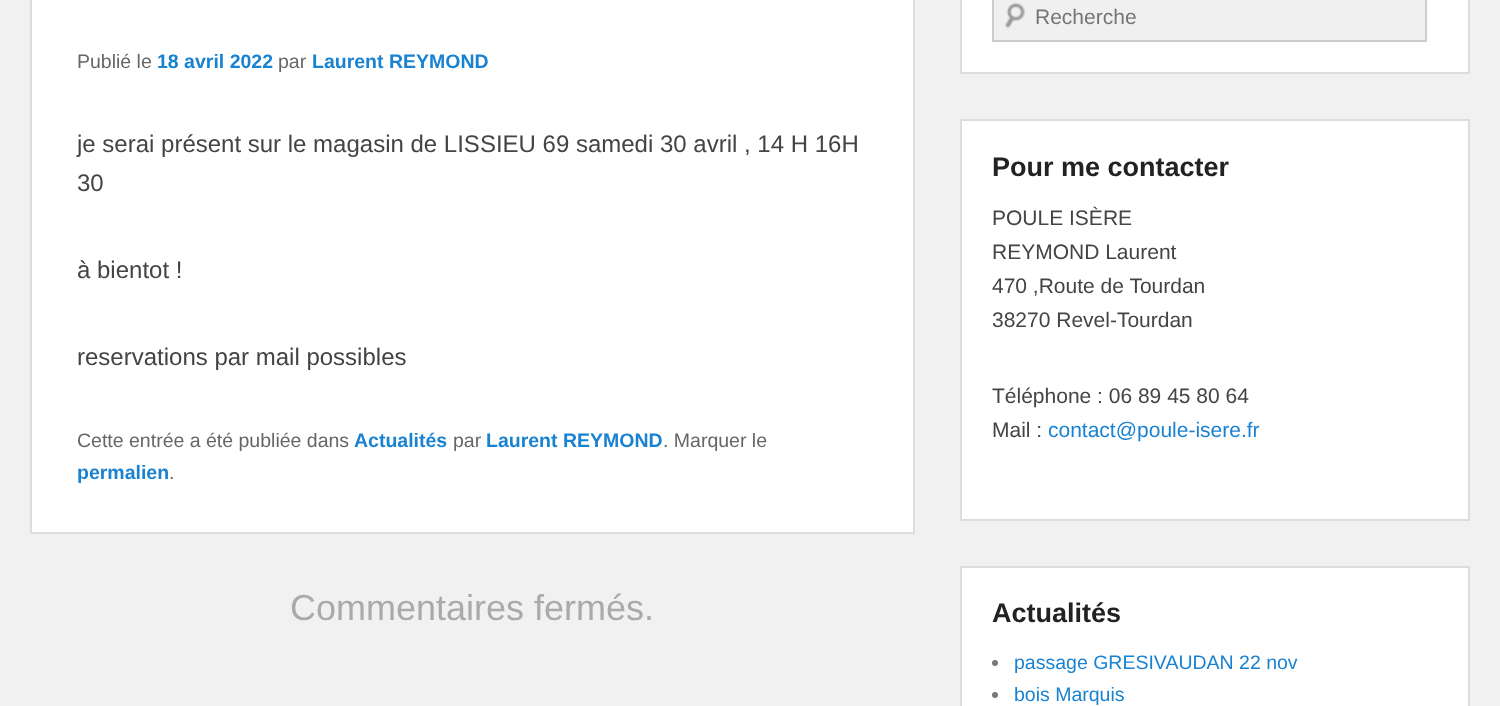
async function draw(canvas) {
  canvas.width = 1500;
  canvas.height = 706;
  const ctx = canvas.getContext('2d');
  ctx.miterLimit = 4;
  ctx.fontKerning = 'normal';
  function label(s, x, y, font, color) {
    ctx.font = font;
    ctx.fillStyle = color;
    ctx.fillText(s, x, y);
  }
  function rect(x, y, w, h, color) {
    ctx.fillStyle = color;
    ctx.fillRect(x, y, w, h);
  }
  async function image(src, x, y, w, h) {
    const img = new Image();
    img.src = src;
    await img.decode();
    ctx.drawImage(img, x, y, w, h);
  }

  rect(0, 0, 1500, 706, '#f1f1f1');
  ctx.fillStyle = '#fff';
  ctx.beginPath();
  ctx.rect(31, -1, 883, 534);
  ctx.fill();
  ctx.strokeStyle = '#ddd';
  ctx.lineWidth = 2;
  ctx.stroke();
  label('Publié le', 77, 68, '19.5px Liberation Sans', '#666');
  label('18 avril 2022', 157, 68, 'bold 19.5px Liberation Sans', '#1982d1');
  label('par', 278, 68, '19.5px Liberation Sans', '#666');
  label('Laurent REYMOND', 312, 68, 'bold 19.5px Liberation Sans', '#1982d1');
  label('je serai présent sur le magasin de LISSIEU 69 samedi 30 avril , 14 H 16H', 77, 152, '24px Liberation Sans', '#444');
  label('30', 77, 191, '24px Liberation Sans', '#444');
  label('à bientot !', 77, 278, '24px Liberation Sans', '#444');
  label('reservations par mail possibles', 77, 365, '24px Liberation Sans', '#444');
  label('Cette entrée a été publiée dans', 77, 447, '19.5px Liberation Sans', '#666');
  label('Actualités', 354, 447, 'bold 19.5px Liberation Sans', '#1982d1');
  label('par', 453, 447, '19.5px Liberation Sans', '#666');
  label('Laurent REYMOND', 486, 447, 'bold 19.5px Liberation Sans', '#1982d1');
  label('. Marquer le', 663, 447, '19.5px Liberation Sans', '#666');
  label('permalien', 77, 479, 'bold 19.5px Liberation Sans', '#1982d1');
  label('.', 169, 479, '19.5px Liberation Sans', '#666');
  label('Commentaires fermés.', 290, 620, '36px Liberation Sans', '#aaa');
  ctx.fillStyle = '#fff';
  ctx.beginPath();
  ctx.rect(961, -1, 508, 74);
  ctx.fill();
  ctx.stroke();
  rect(994, 0, 431, 40, '#f0f0f0');
  await image('assets/img1.png', 1005, 2, 20, 27);
  ctx.strokeStyle = '#ccc';
  ctx.strokeRect(993, -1, 433, 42);
  label('Recherche', 1035, 24, '21px Liberation Sans', '#757575');
  ctx.fillStyle = '#fff';
  ctx.beginPath();
  ctx.rect(961, 120, 508, 400);
  ctx.fill();
  ctx.strokeStyle = '#ddd';
  ctx.stroke();
  label('Pour me contacter', 992, 176, 'bold 27px Liberation Sans', '#222');
  label('POULE ISÈRE', 992, 225, '21px Liberation Sans', '#444');
  label('REYMOND Laurent', 992, 259, '21px Liberation Sans', '#444');
  label('470 ,Route de Tourdan', 992, 293, '21px Liberation Sans', '#444');
  label('38270 Revel-Tourdan', 992, 327, '21px Liberation Sans', '#444');
  label('Téléphone : 06 89 45 80 64', 992, 403, '21px Liberation Sans', '#444');
  label('Mail :', 992, 437, '21px Liberation Sans', '#444');
  label('contact@poule-isere.fr', 1048, 437, '21px Liberation Sans', '#1982d1');
  ctx.fillStyle = '#fff';
  ctx.beginPath();
  ctx.rect(961, 567, 508, 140);
  ctx.fill();
  ctx.stroke();
  label('Actualités', 992, 622, 'bold 27px Liberation Sans', '#222');
  ctx.fillStyle = '#777';
  ctx.beginPath();
  ctx.arc(995, 663, 3, 0, 2 * Math.PI);
  ctx.fill();
  label('passage GRESIVAUDAN 22 nov', 1014, 669, '19.5px Liberation Sans', '#1982d1');
  ctx.fillStyle = '#777';
  ctx.beginPath();
  ctx.arc(995, 695, 3, 0, 2 * Math.PI);
  ctx.fill();
  label('bois Marquis', 1014, 701, '19.5px Liberation Sans', '#1982d1');
}

draw(document.querySelector('canvas'));
